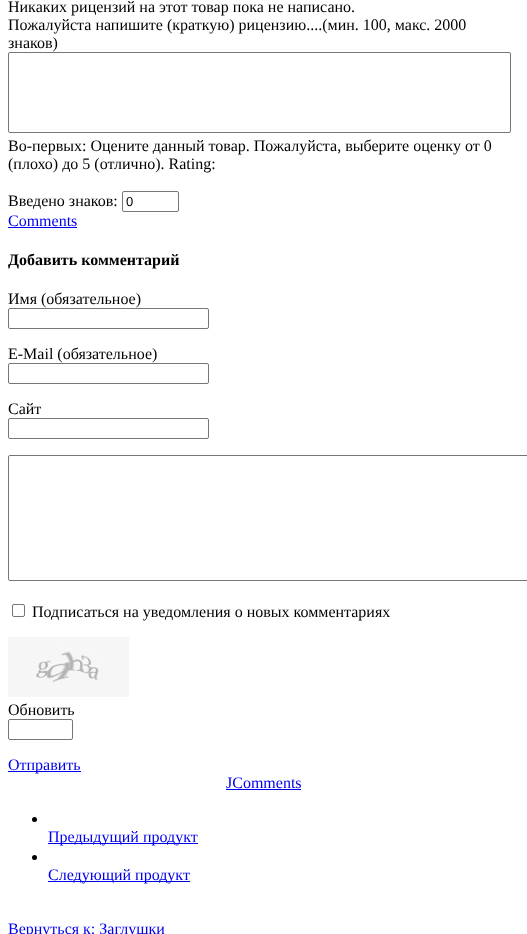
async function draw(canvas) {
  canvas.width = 527;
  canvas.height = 934;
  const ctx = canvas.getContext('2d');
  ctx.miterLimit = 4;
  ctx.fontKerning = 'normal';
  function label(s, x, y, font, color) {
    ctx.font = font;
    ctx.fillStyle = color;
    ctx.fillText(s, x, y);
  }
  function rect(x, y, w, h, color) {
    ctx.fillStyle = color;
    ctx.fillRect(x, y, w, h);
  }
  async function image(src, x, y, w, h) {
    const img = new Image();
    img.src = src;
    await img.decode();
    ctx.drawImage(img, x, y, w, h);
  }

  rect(0, 0, 527, 934, '#fff');
  label('Никаких рицензий на этот товар пока не написано.', 8, 12, '16px Liberation Serif', '#000');
  label('Пожалуйста напишите (краткую) рицензию....(мин. 100, макс. 2000', 8, 30, '16px Liberation Serif', '#000');
  label('знаков)', 8, 48, '16px Liberation Serif', '#000');
  ctx.beginPath();
  ctx.roundRect(8.5, 52.5, 502, 80, 1.5);
  ctx.strokeStyle = '#767676';
  ctx.stroke();
  label('Во-первых: Оцените данный товар. Пожалуйста, выберите оценку от 0', 8, 151, '16px Liberation Serif', '#000');
  label('(плохо) до 5 (отлично). Rating:', 8, 169, '16px Liberation Serif', '#000');
  label('Введено знаков:', 8, 206, '16px Liberation Serif', '#000');
  ctx.beginPath();
  ctx.roundRect(122.5, 191.5, 56, 20, 1.5);
  ctx.stroke();
  label('0', 126, 206, '13px Liberation Sans', '#000');
  label('Comments', 8, 226, '16px Liberation Serif', '#00e');
  rect(8, 227, 69, 1, '#00e');
  label('Добавить комментарий', 8, 265, 'bold 16px Liberation Serif', '#000');
  label('Имя (обязательное)', 8, 304, '16px Liberation Serif', '#000');
  ctx.beginPath();
  ctx.roundRect(8.5, 308.5, 200, 20, 1.5);
  ctx.stroke();
  label('E-Mail (обязательное)', 8, 359, '16px Liberation Serif', '#000');
  ctx.beginPath();
  ctx.roundRect(8.5, 363.5, 200, 20, 1.5);
  ctx.stroke();
  label('Сайт', 8, 414, '16px Liberation Serif', '#000');
  ctx.beginPath();
  ctx.roundRect(8.5, 418.5, 200, 20, 1.5);
  ctx.stroke();
  ctx.beginPath();
  ctx.roundRect(8.5, 455.5, 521, 125, 1.5);
  ctx.stroke();
  ctx.beginPath();
  ctx.roundRect(12.5, 604.5, 12, 12, 1.5);
  ctx.stroke();
  label('Подписаться на уведомления о новых комментариях', 32, 617, '16px Liberation Serif', '#000');
  await image('assets/img1.png', 8, 637, 121, 60);
  label('Обновить', 8, 715, '16px Liberation Serif', '#000');
  ctx.beginPath();
  ctx.roundRect(8.5, 719.5, 64, 20, 1.5);
  ctx.stroke();
  rect(8, 771, 73, 1, '#00e');
  label('Отправить', 8, 770, '16px Liberation Serif', '#00e');
  label('JComments', 226, 788, '16px Liberation Serif', '#00e');
  rect(226, 789, 75, 1, '#00e');
  ctx.fillStyle = '#000';
  ctx.beginPath();
  ctx.arc(34.5, 819.5, 2.5, 0, 2 * Math.PI);
  ctx.fill();
  rect(48, 843, 150, 1, '#00e');
  label('Предыдущий продукт', 48, 842, '16px Liberation Serif', '#00e');
  ctx.fillStyle = '#000';
  ctx.beginPath();
  ctx.arc(34.5, 857.5, 2.5, 0, 2 * Math.PI);
  ctx.fill();
  rect(48, 881, 142, 1, '#00e');
  label('Следующий продукт', 48, 880, '16px Liberation Serif', '#00e');
  label('Вернуться к: Заглушки', 8, 934, '16px Liberation Serif', '#00e');
}

draw(document.querySelector('canvas'));
